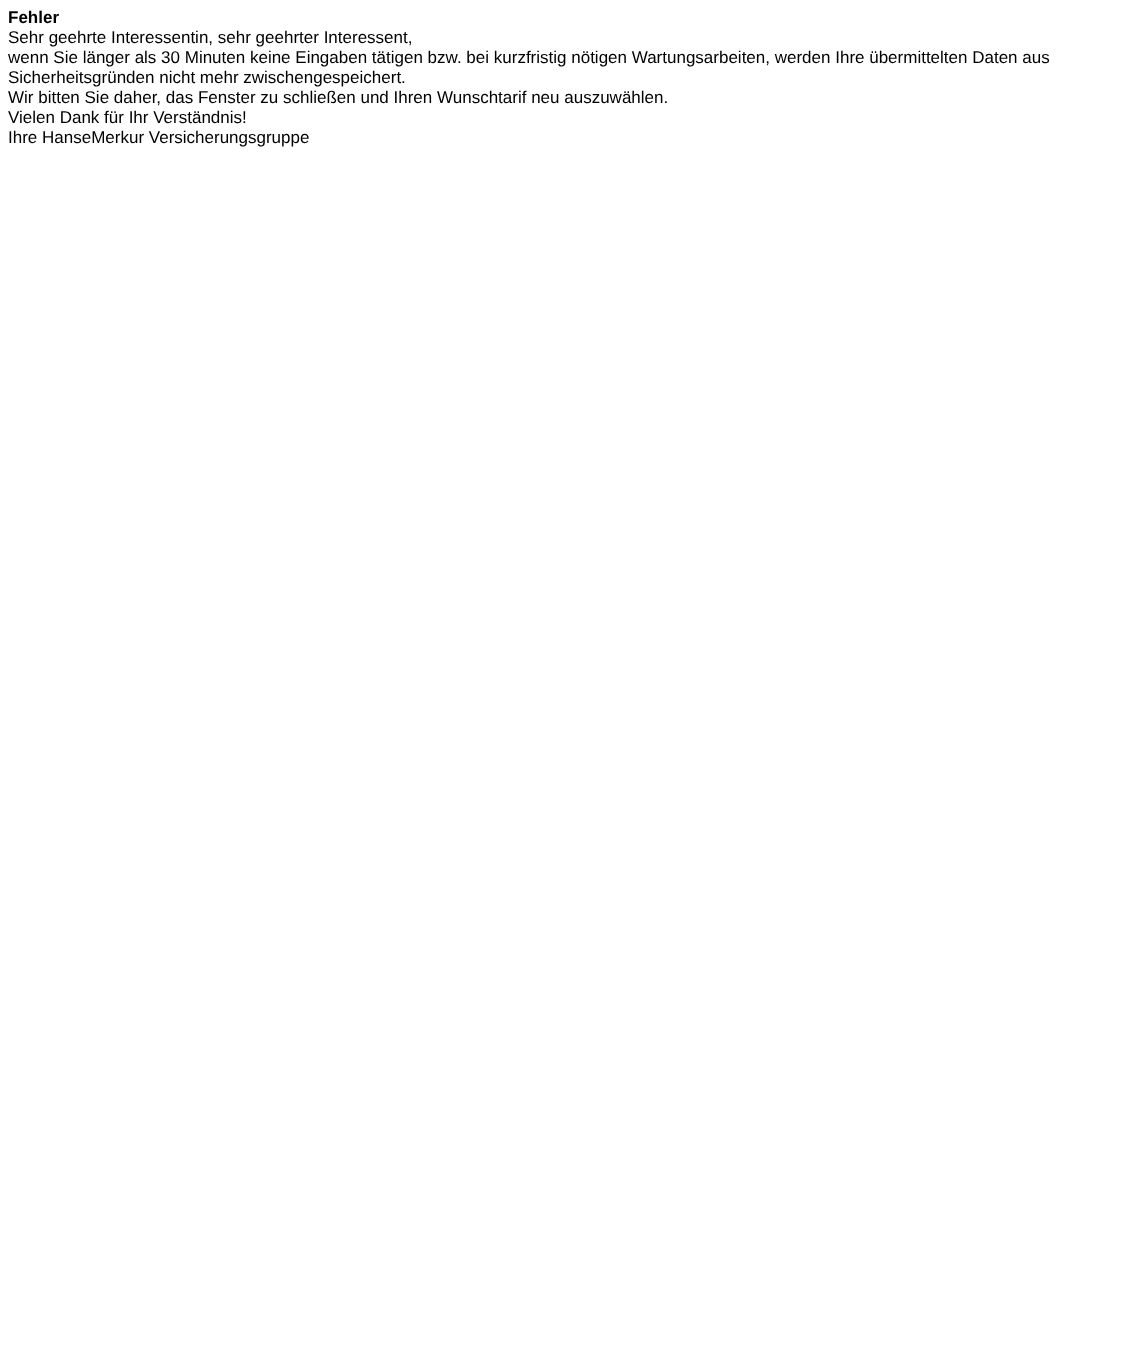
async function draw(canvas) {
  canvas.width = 1141;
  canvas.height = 1354;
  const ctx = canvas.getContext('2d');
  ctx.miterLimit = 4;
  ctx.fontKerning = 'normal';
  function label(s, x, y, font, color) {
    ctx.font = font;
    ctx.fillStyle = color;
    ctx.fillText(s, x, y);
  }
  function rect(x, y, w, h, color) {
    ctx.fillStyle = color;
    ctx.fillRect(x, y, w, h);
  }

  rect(0, 0, 1141, 1354, '#fff');
  label('Fehler', 8, 23, 'bold 17px Liberation Sans', '#000');
  label('Sehr geehrte Interessentin, sehr geehrter Interessent,', 8, 43, '17px Liberation Sans', '#000');
  label('wenn Sie länger als 30 Minuten keine Eingaben tätigen bzw. bei kurzfristig nötigen Wartungsarbeiten, werden Ihre übermittelten Daten aus', 8, 63, '17px Liberation Sans', '#000');
  label('Sicherheitsgründen nicht mehr zwischengespeichert.', 8, 83, '17px Liberation Sans', '#000');
  label('Wir bitten Sie daher, das Fenster zu schließen und Ihren Wunschtarif neu auszuwählen.', 8, 103, '17px Liberation Sans', '#000');
  label('Vielen Dank für Ihr Verständnis!', 8, 123, '17px Liberation Sans', '#000');
  label('Ihre HanseMerkur Versicherungsgruppe', 8, 143, '17px Liberation Sans', '#000');
}

draw(document.querySelector('canvas'));
